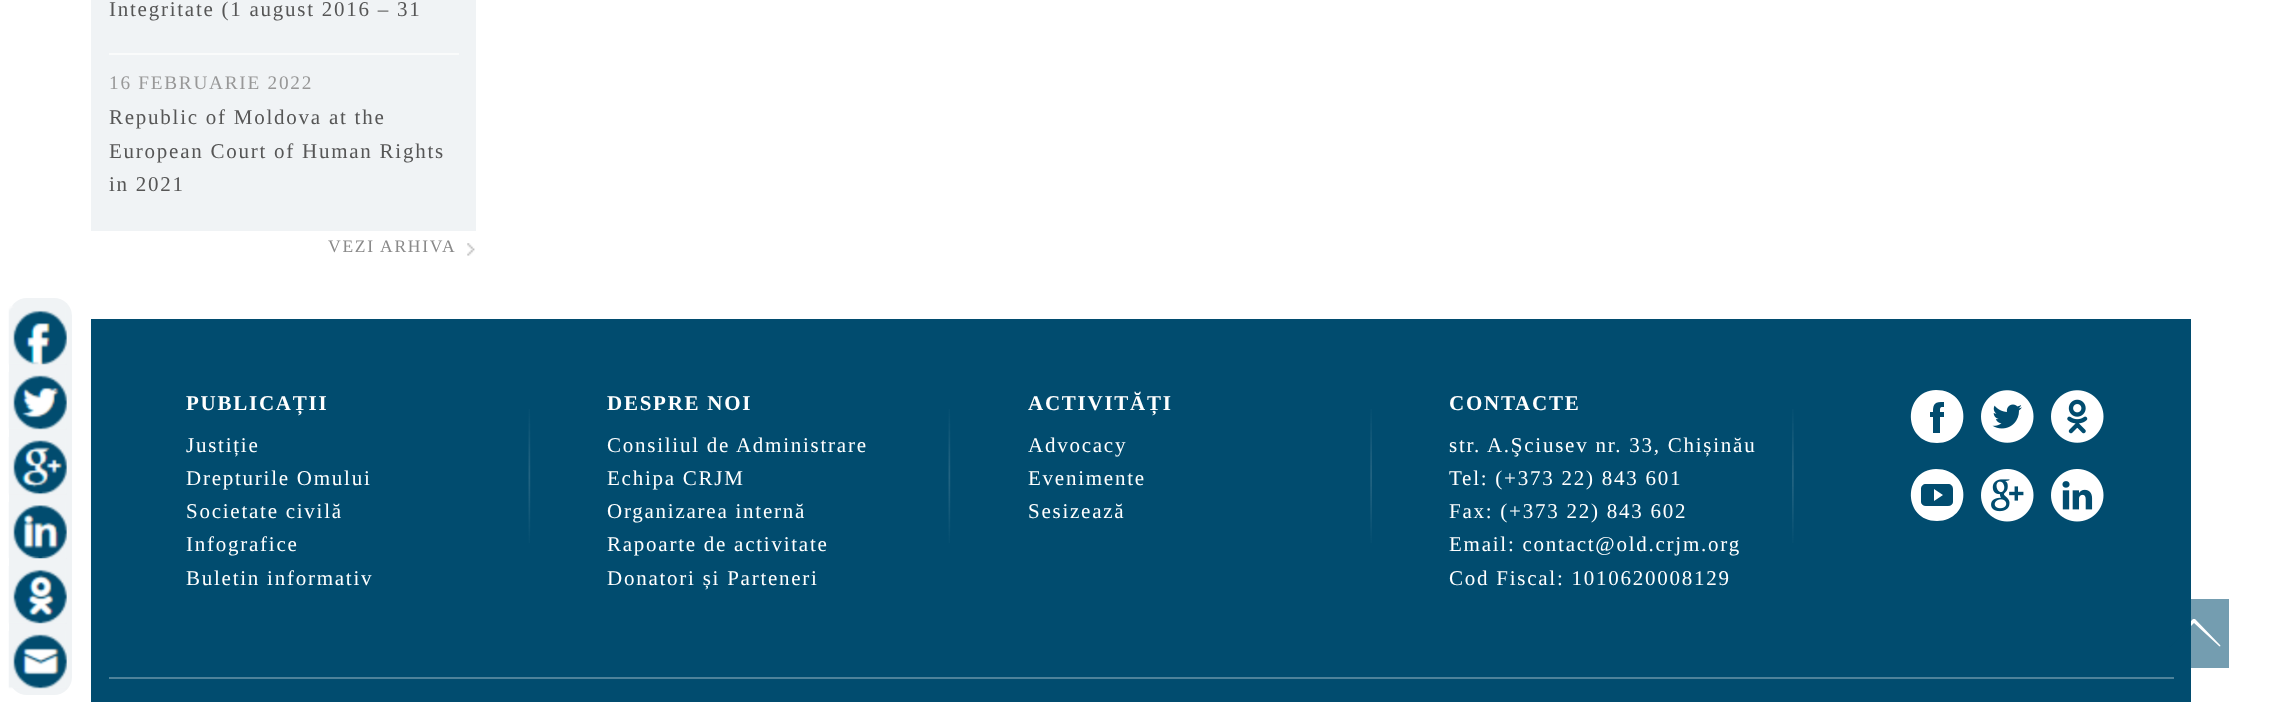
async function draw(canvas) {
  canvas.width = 2282;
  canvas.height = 702;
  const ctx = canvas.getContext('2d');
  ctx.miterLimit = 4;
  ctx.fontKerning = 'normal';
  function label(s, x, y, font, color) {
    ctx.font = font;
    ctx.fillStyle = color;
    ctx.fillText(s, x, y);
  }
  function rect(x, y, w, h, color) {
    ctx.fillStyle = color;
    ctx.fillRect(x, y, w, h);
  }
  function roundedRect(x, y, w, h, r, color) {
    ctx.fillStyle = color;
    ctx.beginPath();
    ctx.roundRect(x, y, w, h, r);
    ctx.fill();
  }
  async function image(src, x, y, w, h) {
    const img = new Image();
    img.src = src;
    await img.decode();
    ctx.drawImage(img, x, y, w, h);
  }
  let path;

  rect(0, 0, 2282, 702, '#fff');
  rect(91, 0, 385, 231, '#f0f3f5');
  ctx.letterSpacing = '1.75px';
  label('Integritate (1 august 2016 – 31', 109, 16, '21px Liberation Serif', '#565656');
  rect(109, 53, 350, 2, '#fafbfb');
  label('16 FEBRUARIE 2022', 109, 89, '19.25px Liberation Serif', '#989898');
  label('Republic of Moldova at the', 109, 124, '21px Liberation Serif', '#565656');
  label('European Court of Human Rights', 109, 158, '21px Liberation Serif', '#565656');
  label('in 2021', 109, 191, '21px Liberation Serif', '#565656');
  label('VEZI ARHIVA', 328, 252, '17.5px Liberation Serif', '#8a8a8a');
  await image('assets/img1.png', 467, 243, 8, 13);
  roundedRect(9, 298, 63, 397, 18, '#f0f3f5');
  await image('assets/img2.png', 8, 306, 59, 59);
  await image('assets/img3.png', 8, 372, 59, 58);
  await image('assets/img4.png', 8, 437, 59, 58);
  await image('assets/img5.png', 8, 502, 59, 57);
  await image('assets/img6.png', 8, 566, 59, 58);
  await image('assets/img7.png', 8, 631, 59, 58);
  rect(91, 319, 2100, 383, '#014c6f');
  label('PUBLICAȚII', 186, 410, 'bold 21px Liberation Serif', '#fff');
  label('Justiție', 186, 452, '21px Liberation Serif', '#fff');
  label('Drepturile Omului', 186, 485, '21px Liberation Serif', '#fff');
  label('Societate civilă', 186, 518, '21px Liberation Serif', '#fff');
  label('Infografice', 186, 551, '21px Liberation Serif', '#fff');
  label('Buletin informativ', 186, 585, '21px Liberation Serif', '#fff');
  await image('assets/img8.png', 528, 409, 3, 134);
  label('DESPRE NOI', 607, 410, 'bold 21px Liberation Serif', '#fff');
  label('Consiliul de Administrare', 607, 452, '21px Liberation Serif', '#fff');
  label('Echipa CRJM', 607, 485, '21px Liberation Serif', '#fff');
  label('Organizarea internă', 607, 518, '21px Liberation Serif', '#fff');
  label('Rapoarte de activitate', 607, 551, '21px Liberation Serif', '#fff');
  label('Donatori și Parteneri', 607, 585, '21px Liberation Serif', '#fff');
  await image('assets/img8.png', 948, 409, 3, 134);
  label('ACTIVITĂȚI', 1028, 410, 'bold 21px Liberation Serif', '#fff');
  label('Advocacy', 1028, 452, '21px Liberation Serif', '#fff');
  label('Evenimente', 1028, 485, '21px Liberation Serif', '#fff');
  label('Sesizează', 1028, 518, '21px Liberation Serif', '#fff');
  await image('assets/img9.png', 1370, 409, 2, 134);
  label('CONTACTE', 1449, 410, 'bold 21px Liberation Serif', '#fff');
  label('str. A.Şciusev nr. 33, Chișinău', 1449, 452, '21px Liberation Serif', '#fff');
  label('Tel: (+373 22) 843 601', 1449, 485, '21px Liberation Serif', '#fff');
  label('Fax: (+373 22) 843 602', 1449, 518, '21px Liberation Serif', '#fff');
  label('Email: contact@old.crjm.org', 1449, 551, '21px Liberation Serif', '#fff');
  label('Cod Fiscal: 1010620008129', 1449, 585, '21px Liberation Serif', '#fff');
  await image('assets/img10.png', 1792, 409, 2, 134);
  path = new Path2D('M1936 390C1973 390 1972 443 1937 443C1903 443 1902 391 1936 390ZM1944 417H1940V433H1933V417H1930V412H1933C1933 403 1935 402 1944 402V407C1940 407 1940 407 1940 412H1944Z');
  ctx.fill(path, 'evenodd');
  await image('assets/img11.png', 1981, 390, 53, 53);
  await image('assets/img12.png', 2051, 390, 53, 53);
  path = new Path2D('M1936 469C1973 469 1972 521 1937 521C1903 521 1902 470 1936 469ZM1953 489C1953 486 1951 484 1948 484H1926C1923 484 1921 486 1921 489V502C1921 504 1923 506 1926 506H1948C1951 506 1953 504 1953 502ZM1934 501V489L1943 495Z');
  ctx.fill(path, 'evenodd');
  await image('assets/img13.png', 1981, 469, 53, 53);
  await image('assets/img14.png', 2051, 469, 53, 53);
  rect(109, 677, 2065, 2, '#4e829a');
  ctx.save();
  ctx.beginPath();
  ctx.rect(2160, 599, 70, 70);
  ctx.clip();
  ctx.fillStyle = '#014c6f8c';
  path = new Path2D('M2160 598H2229V668H2160ZM2193 619L2169 644V646C2170 648 2172 645 2175 642L2194 623L2219 646C2220 647 2221 646 2220 645L2195 619Z');
  ctx.fill(path, 'evenodd');
  ctx.restore();
}

draw(document.querySelector('canvas'));
